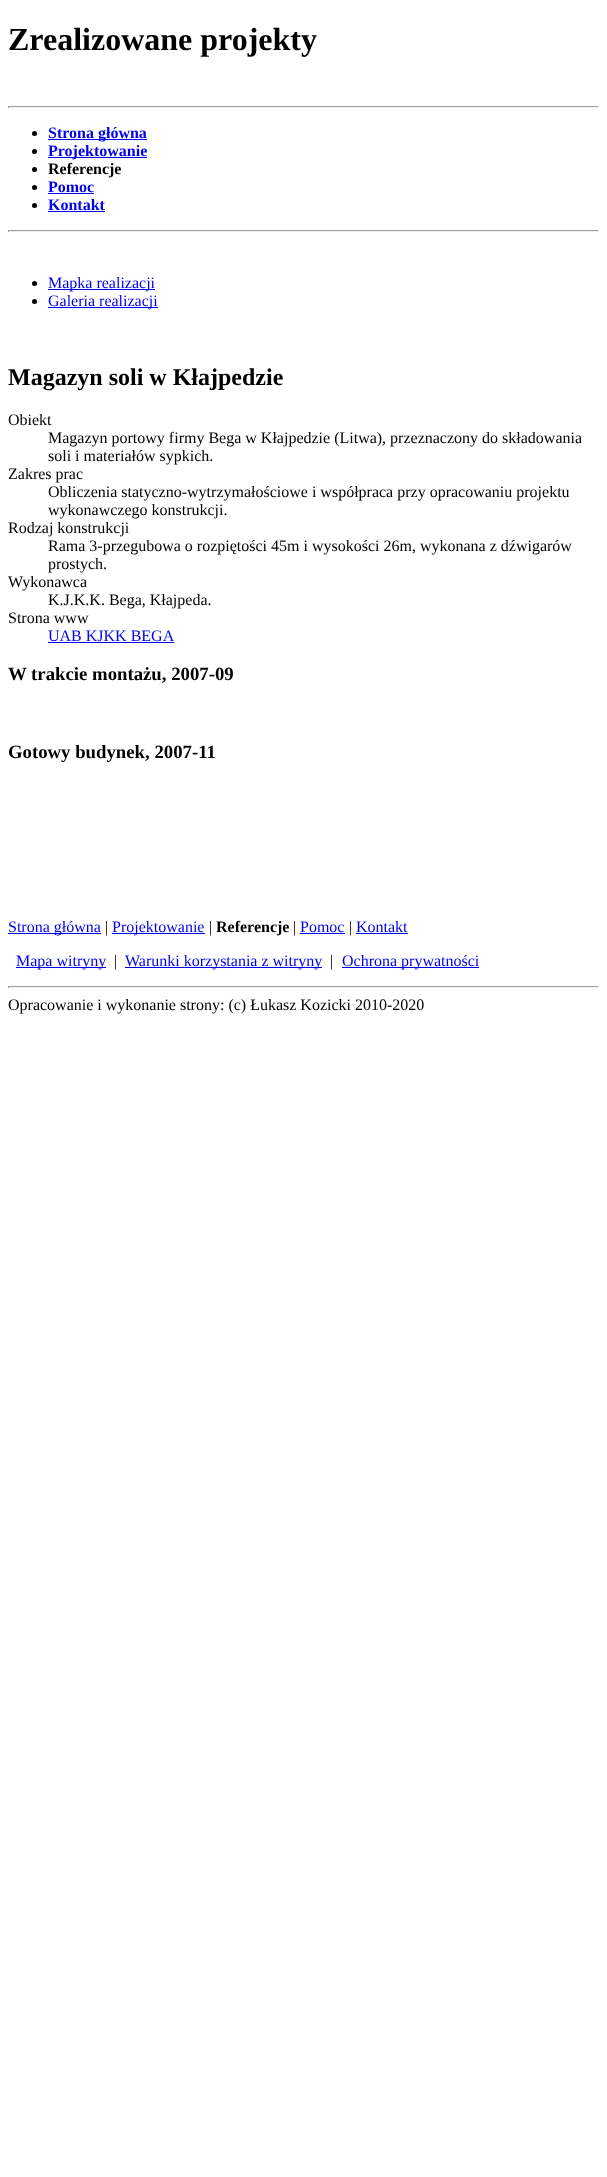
async function draw(canvas) {
  canvas.width = 607;
  canvas.height = 2177;
  const ctx = canvas.getContext('2d');
  ctx.miterLimit = 4;
  ctx.fontKerning = 'normal';
  function label(s, x, y, font, color) {
    ctx.font = font;
    ctx.fillStyle = color;
    ctx.fillText(s, x, y);
  }
  function rect(x, y, w, h, color) {
    ctx.fillStyle = color;
    ctx.fillRect(x, y, w, h);
  }

  rect(0, 0, 607, 2177, '#fff');
  label('Zrealizowane projekty', 8, 50, 'bold 32px Liberation Serif', '#000');
  rect(8, 106, 591, 1, '#9f9f9f');
  rect(598, 106, 1, 2, '#eee');
  rect(8, 107, 591, 1, '#eee');
  rect(8, 106, 1, 2, '#9f9f9f');
  ctx.fillStyle = '#000';
  ctx.beginPath();
  ctx.arc(34.5, 133.5, 2.5, 0, 2 * Math.PI);
  ctx.fill();
  rect(48, 139, 99, 1, '#00e');
  label('Strona główna', 48, 138, 'bold 16px Liberation Serif', '#00e');
  ctx.fillStyle = '#000';
  ctx.beginPath();
  ctx.arc(34.5, 151.5, 2.5, 0, 2 * Math.PI);
  ctx.fill();
  rect(48, 157, 99, 1, '#00e');
  label('Projektowanie', 48, 156, 'bold 16px Liberation Serif', '#00e');
  ctx.fillStyle = '#000';
  ctx.beginPath();
  ctx.arc(34.5, 169.5, 2.5, 0, 2 * Math.PI);
  ctx.fill();
  label('Referencje', 48, 174, 'bold 16px Liberation Serif', '#000');
  ctx.beginPath();
  ctx.arc(34.5, 187.5, 2.5, 0, 2 * Math.PI);
  ctx.fill();
  label('Pomoc', 48, 192, 'bold 16px Liberation Serif', '#00e');
  rect(48, 193, 46, 1, '#00e');
  ctx.fillStyle = '#000';
  ctx.beginPath();
  ctx.arc(34.5, 205.5, 2.5, 0, 2 * Math.PI);
  ctx.fill();
  label('Kontakt', 48, 210, 'bold 16px Liberation Serif', '#00e');
  rect(48, 211, 57, 1, '#00e');
  rect(8, 230, 591, 1, '#9f9f9f');
  rect(598, 230, 1, 2, '#eee');
  rect(8, 231, 591, 1, '#eee');
  rect(8, 230, 1, 2, '#9f9f9f');
  ctx.fillStyle = '#000';
  ctx.beginPath();
  ctx.arc(34.5, 283.5, 2.5, 0, 2 * Math.PI);
  ctx.fill();
  rect(48, 289, 107, 1, '#00e');
  label('Mapka realizacji', 48, 288, '16px Liberation Serif', '#00e');
  ctx.fillStyle = '#000';
  ctx.beginPath();
  ctx.arc(34.5, 301.5, 2.5, 0, 2 * Math.PI);
  ctx.fill();
  rect(48, 307, 110, 1, '#00e');
  label('Galeria realizacji', 48, 306, '16px Liberation Serif', '#00e');
  label('Magazyn soli w Kłajpedzie', 8, 385, 'bold 24px Liberation Serif', '#000');
  label('Obiekt', 8, 425, '16px Liberation Serif', '#000');
  label('Magazyn portowy firmy Bega w Kłajpedzie (Litwa), przeznaczony do składowania', 48, 443, '16px Liberation Serif', '#000');
  label('soli i materiałów sypkich.', 48, 461, '16px Liberation Serif', '#000');
  label('Zakres prac', 8, 479, '16px Liberation Serif', '#000');
  label('Obliczenia statyczno-wytrzymałościowe i współpraca przy opracowaniu projektu', 48, 497, '16px Liberation Serif', '#000');
  label('wykonawczego konstrukcji.', 48, 515, '16px Liberation Serif', '#000');
  label('Rodzaj konstrukcji', 8, 533, '16px Liberation Serif', '#000');
  label('Rama 3-przegubowa o rozpiętości 45m i wysokości 26m, wykonana z dźwigarów', 48, 551, '16px Liberation Serif', '#000');
  label('prostych.', 48, 569, '16px Liberation Serif', '#000');
  label('Wykonawca', 8, 587, '16px Liberation Serif', '#000');
  label('K.J.K.K. Bega, Kłajpeda.', 48, 605, '16px Liberation Serif', '#000');
  label('Strona www', 8, 623, '16px Liberation Serif', '#000');
  label('UAB KJKK BEGA', 48, 641, '16px Liberation Serif', '#00e');
  rect(48, 642, 126, 1, '#00e');
  label('W trakcie montażu, 2007-09', 8, 680, 'bold 18.75px Liberation Serif', '#000');
  label('Gotowy budynek, 2007-11', 8, 758, 'bold 18.75px Liberation Serif', '#000');
  rect(8, 933, 93, 1, '#00e');
  label('Strona główna', 8, 932, '16px Liberation Serif', '#00e');
  label('|', 105, 932, '16px Liberation Serif', '#000');
  rect(112, 933, 93, 1, '#00e');
  label('Projektowanie', 112, 932, '16px Liberation Serif', '#00e');
  label('|', 209, 932, '16px Liberation Serif', '#000');
  label('Referencje', 216, 932, 'bold 16px Liberation Serif', '#000');
  label('|', 293, 932, '16px Liberation Serif', '#000');
  label('Pomoc', 300, 932, '16px Liberation Serif', '#00e');
  rect(300, 933, 45, 1, '#00e');
  label('|', 349, 932, '16px Liberation Serif', '#000');
  label('Kontakt', 356, 932, '16px Liberation Serif', '#00e');
  rect(356, 933, 52, 1, '#00e');
  rect(16, 967, 90, 1, '#00e');
  label('Mapa witryny', 16, 966, '16px Liberation Serif', '#00e');
  label('|', 114, 966, '16px Liberation Serif', '#000');
  rect(125, 967, 197, 1, '#00e');
  label('Warunki korzystania z witryny', 125, 966, '16px Liberation Serif', '#00e');
  label('|', 330, 966, '16px Liberation Serif', '#000');
  rect(342, 967, 137, 1, '#00e');
  label('Ochrona prywatności', 342, 966, '16px Liberation Serif', '#00e');
  rect(8, 986, 591, 1, '#9f9f9f');
  rect(598, 986, 1, 2, '#eee');
  rect(8, 987, 591, 1, '#eee');
  rect(8, 986, 1, 2, '#9f9f9f');
  label('Opracowanie i wykonanie strony: (c) Łukasz Kozicki 2010-2020', 8, 1010, '16px Liberation Serif', '#000');
}

draw(document.querySelector('canvas'));
